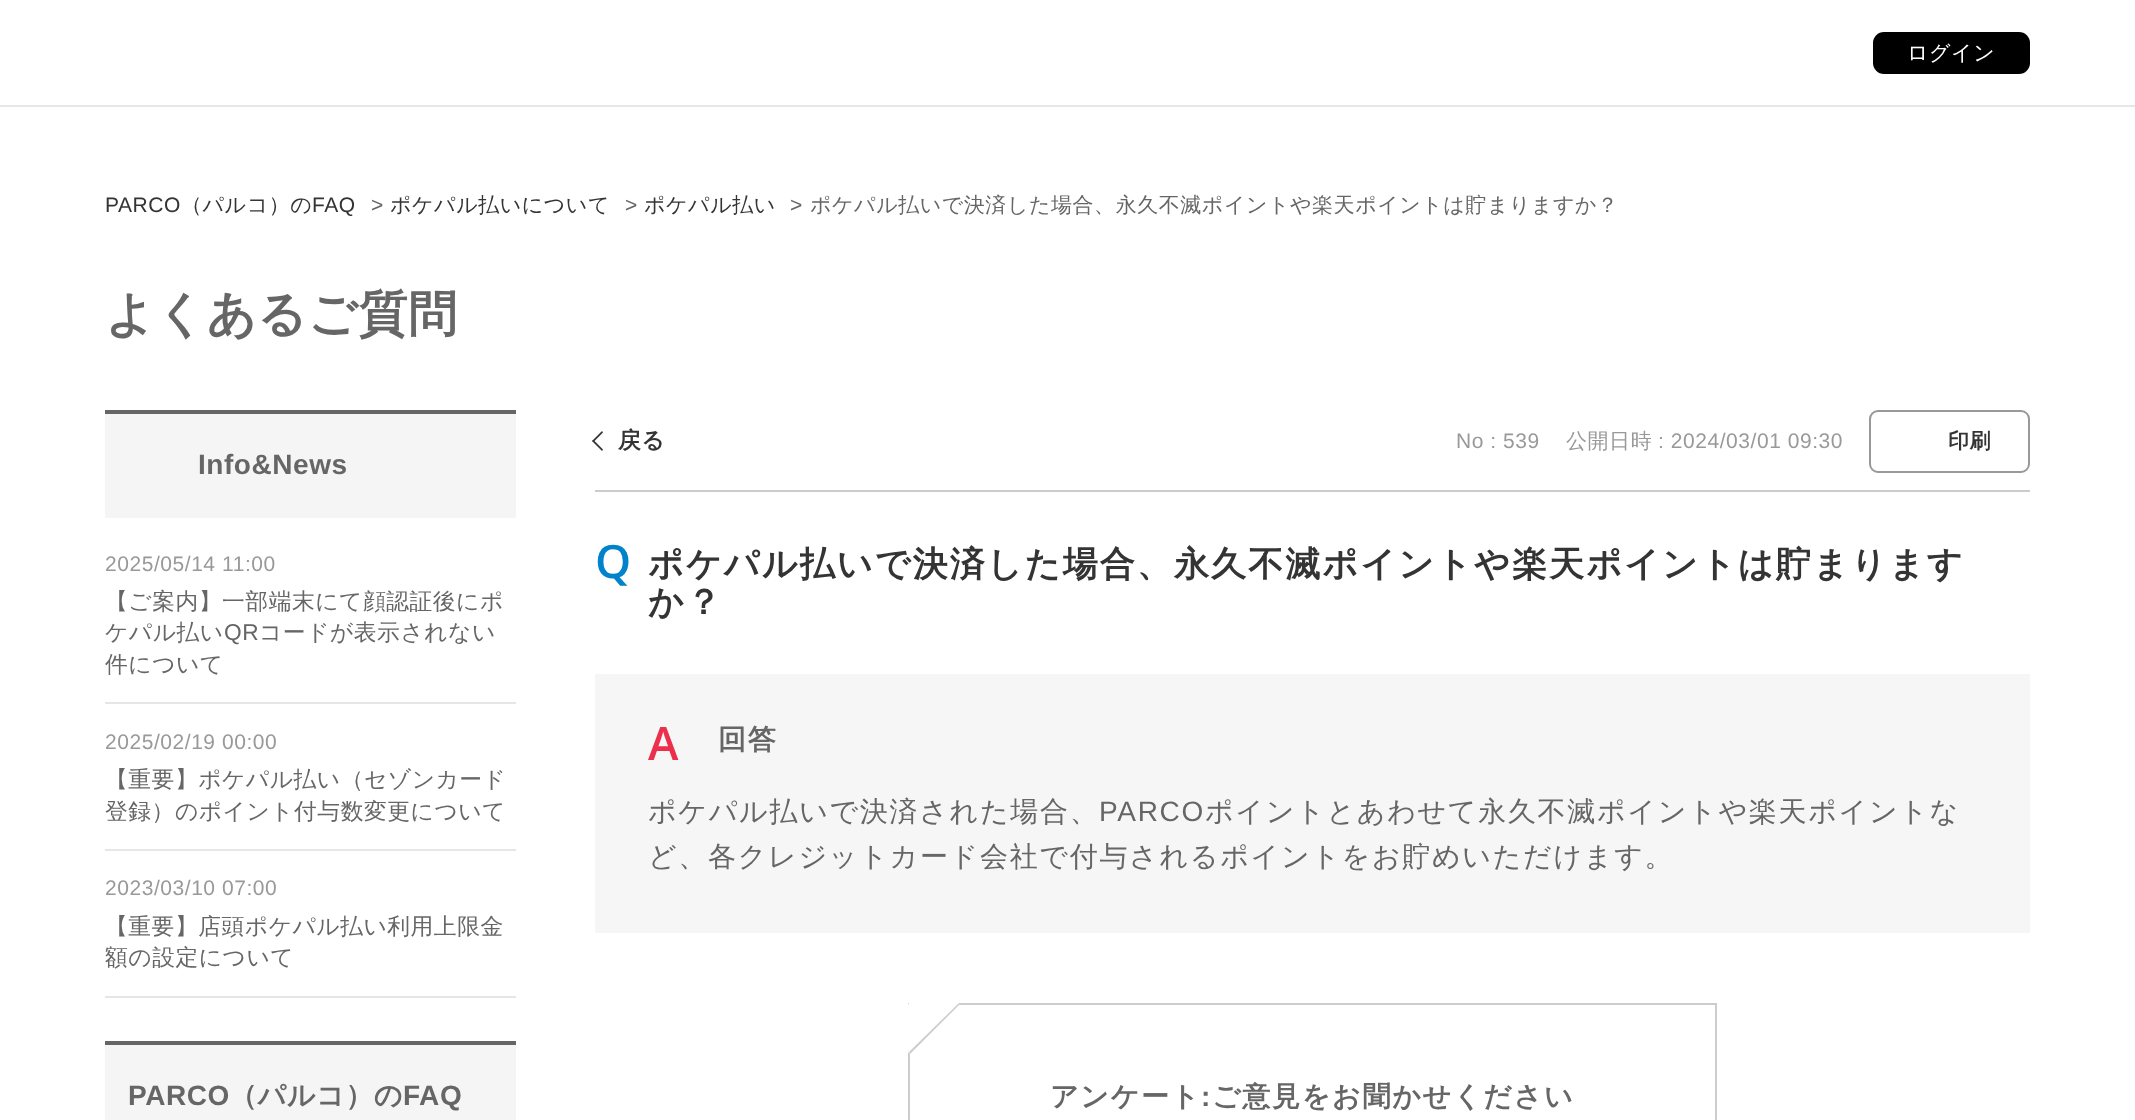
async function draw(canvas) {
  canvas.width = 2135;
  canvas.height = 1120;
  const ctx = canvas.getContext('2d');
  ctx.miterLimit = 4;
  ctx.fontKerning = 'normal';
  function label(s, x, y, font, color) {
    ctx.font = font;
    ctx.fillStyle = color;
    ctx.fillText(s, x, y);
  }
  function rect(x, y, w, h, color) {
    ctx.fillStyle = color;
    ctx.fillRect(x, y, w, h);
  }
  function roundedRect(x, y, w, h, r, color) {
    ctx.fillStyle = color;
    ctx.beginPath();
    ctx.roundRect(x, y, w, h, r);
    ctx.fill();
  }
  let path;

  rect(0, 0, 2135, 1120, '#fff');
  rect(0, 105, 2135, 2, '#e6e6e6');
  roundedRect(1873, 32, 157, 42, 11, '#000');
  ctx.letterSpacing = '0.55px';
  label('ログイン', 1907, 60, '500 21px WenQuanYi Zen Hei', '#fff');
  label('PARCO', 105, 212, '21px Liberation Sans', '#343434');
  label('（パルコ）の', 181, 212, '500 21px WenQuanYi Zen Hei', '#343434');
  label('FAQ', 312, 212, '21px Liberation Sans', '#343434');
  label('>', 371, 212, '21px Liberation Sans', '#666');
  label('ポケパル払いについて', 390, 212, '500 21px WenQuanYi Zen Hei', '#343434');
  label('>', 625, 212, '21px Liberation Sans', '#666');
  label('ポケパル払い', 644, 212, '500 21px WenQuanYi Zen Hei', '#343434');
  label('>', 790, 212, '21px Liberation Sans', '#666');
  label('ポケパル払いで決済した場合、永久不滅ポイントや楽天ポイントは貯まりますか？', 810, 212, '500 21px WenQuanYi Zen Hei', '#666');
  label('よくあるご質問', 105, 331, 'bold 49px WenQuanYi Zen Hei', '#666');
  rect(105, 414, 411, 104, '#f5f5f5');
  rect(105, 410, 411, 4, '#666');
  label('Info&News', 198, 474, 'bold 28px Liberation Sans', '#666');
  rect(105, 702, 411, 2, '#e6e6e6');
  label('2025/05/14 11:00', 105, 571, '21px Liberation Sans', '#999');
  label('【ご案内】一部端末にて顔認証後にポ', 105, 609, '500 22.75px WenQuanYi Zen Hei', '#666');
  label('ケパル払い', 105, 640, '500 22.75px WenQuanYi Zen Hei', '#666');
  label('QR', 224, 640, '22.75px Liberation Sans', '#666');
  label('コードが表示されない', 259, 640, '500 22.75px WenQuanYi Zen Hei', '#666');
  label('件について', 105, 672, '500 22.75px WenQuanYi Zen Hei', '#666');
  rect(105, 849, 411, 2, '#e6e6e6');
  label('2025/02/19 00:00', 105, 749, '21px Liberation Sans', '#999');
  label('【重要】ポケパル払い（セゾンカード', 105, 787, '500 22.75px WenQuanYi Zen Hei', '#666');
  label('登録）のポイント付与数変更について', 105, 819, '500 22.75px WenQuanYi Zen Hei', '#666');
  rect(105, 996, 411, 2, '#e6e6e6');
  label('2023/03/10 07:00', 105, 895, '21px Liberation Sans', '#999');
  label('【重要】店頭ポケパル払い利用上限金', 105, 934, '500 22.75px WenQuanYi Zen Hei', '#666');
  label('額の設定について', 105, 965, '500 22.75px WenQuanYi Zen Hei', '#666');
  rect(105, 1045, 411, 75, '#f5f5f5');
  rect(105, 1041, 411, 4, '#666');
  label('PARCO', 128, 1105, 'bold 28px Liberation Sans', '#666');
  label('（パルコ）の', 229, 1105, 'bold 28px WenQuanYi Zen Hei', '#666');
  label('FAQ', 403, 1105, 'bold 28px Liberation Sans', '#666');
  rect(595, 490, 1435, 2, '#ccc');
  ctx.fillStyle = '#343434';
  path = new Path2D('M592 441L602 431L603 432.5L593.5 442Z');
  ctx.fill(path);
  path = new Path2D('M592 441L593.5 440L603 449.5L602 451Z');
  ctx.fill(path);
  label('戻る', 618, 448, 'bold 22.75px WenQuanYi Zen Hei', '#343434');
  label('No : 539', 1456, 448, '21px Liberation Sans', '#999');
  label('公開日時', 1566, 448, '500 21px WenQuanYi Zen Hei', '#999');
  label(': 2024/03/01 09:30', 1658, 448, '21px Liberation Sans', '#999');
  ctx.beginPath();
  ctx.roundRect(1870, 411, 159, 61, 8);
  ctx.strokeStyle = '#999';
  ctx.lineWidth = 2;
  ctx.stroke();
  label('印刷', 1948, 448, 'bold 21px WenQuanYi Zen Hei', '#343434');
  ctx.letterSpacing = '2.1px';
  label('Q', 595, 578, '600 46px Open Sans', '#0083ca');
  label('ポケパル払いで決済した場合、永久不滅ポイントや楽天ポイントは貯まります', 648, 576, 'bold 35px WenQuanYi Zen Hei', '#343434');
  label('か？', 648, 614, 'bold 35px WenQuanYi Zen Hei', '#343434');
  rect(595, 674, 1435, 259, '#f6f6f6');
  ctx.letterSpacing = '1.7px';
  label('A', 648, 760, '600 46px Open Sans', '#eb2f4c');
  label('回答', 718, 749, 'bold 28px WenQuanYi Zen Hei', '#666');
  label('ポケパル払いで決済された場合、', 648, 821, '500 28px WenQuanYi Zen Hei', '#666');
  label('PARCO', 1099, 821, '28px Liberation Sans', '#666');
  label('ポイントとあわせて永久不滅ポイントや楽天ポイントな', 1205, 821, '500 28px WenQuanYi Zen Hei', '#666');
  label('ど、各クレジットカード会社で付与されるポイントをお貯めいただけます。', 648, 866, '500 28px WenQuanYi Zen Hei', '#666');
  ctx.strokeStyle = '#ccc';
  ctx.strokeRect(909, 1004, 807, 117);
  ctx.fillStyle = '#fff';
  path = new Path2D('M885 1028L934 978L960 1004L910 1054Z');
  ctx.fill(path);
  ctx.fillStyle = '#99999980';
  path = new Path2D('M909 1052L959 1003L960 1004L910 1054Z');
  ctx.fill(path);
  label('アンケート', 1050, 1106, 'bold 28px WenQuanYi Zen Hei', '#666');
  label(':', 1201, 1106, 'bold 28px Liberation Sans', '#666');
  label('ご意見をお聞かせください', 1212, 1106, 'bold 28px WenQuanYi Zen Hei', '#666');
}

draw(document.querySelector('canvas'));
